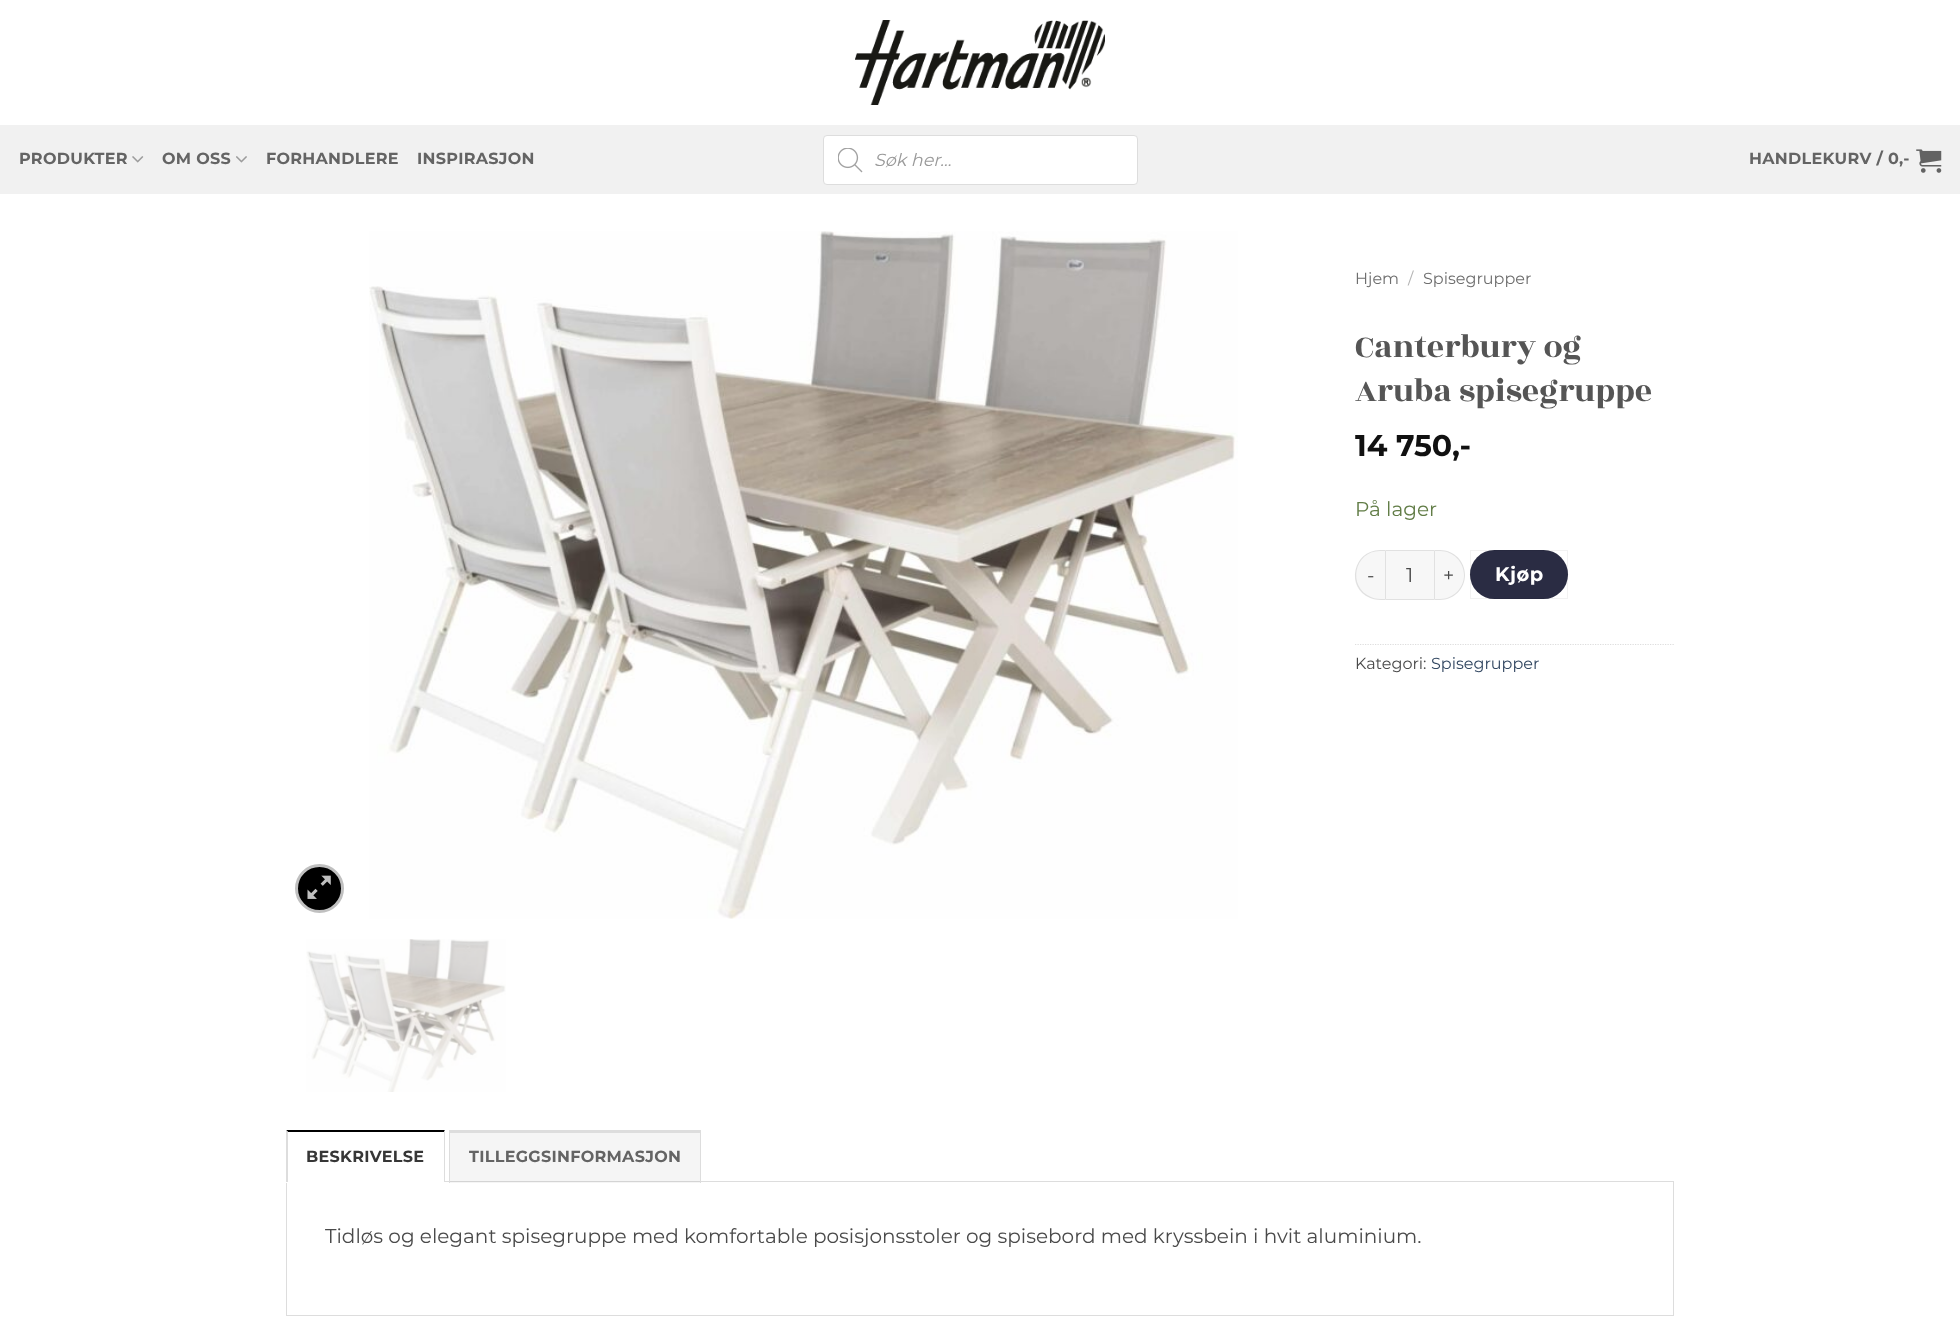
async function draw(canvas) {
  canvas.width = 1960;
  canvas.height = 1321;
  const ctx = canvas.getContext('2d');
  ctx.miterLimit = 4;
  ctx.fontKerning = 'normal';
  function label(s, x, y, font, color) {
    ctx.font = font;
    ctx.fillStyle = color;
    ctx.fillText(s, x, y);
  }
  function rect(x, y, w, h, color) {
    ctx.fillStyle = color;
    ctx.fillRect(x, y, w, h);
  }
  function roundedRect(x, y, w, h, r, color) {
    ctx.fillStyle = color;
    ctx.beginPath();
    ctx.roundRect(x, y, w, h, r);
    ctx.fill();
  }
  async function image(src, x, y, w, h) {
    const img = new Image();
    img.src = src;
    await img.decode();
    ctx.drawImage(img, x, y, w, h);
  }
  let path;

  rect(0, 0, 1960, 1321, '#fff');
  await image('assets/img1.png', 855, 20, 250, 85);
  rect(0, 125, 1960, 69, '#f1f1f1');
  ctx.letterSpacing = '0.3px';
  label('PRODUKTER', 19, 164, '100 16px "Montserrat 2"', '#646464');
  await image('assets/img2.png', 132, 156, 12, 7);
  label('OM OSS', 162, 164, '100 16px "Montserrat 2"', '#646464');
  await image('assets/img3.png', 236, 156, 11, 7);
  label('FORHANDLERE', 266, 164, '100 16px "Montserrat 2"', '#646464');
  label('INSPIRASJON', 417, 164, '100 16px "Montserrat 2"', '#646464');
  ctx.fillStyle = '#fff';
  ctx.beginPath();
  ctx.roundRect(823.5, 135.5, 314, 49, 3.5);
  ctx.fill();
  ctx.strokeStyle = '#ddd';
  ctx.stroke();
  await image('assets/img4.png', 838, 148, 25, 25);
  ctx.letterSpacing = '0px';
  label('Søk her...', 874, 166, 'italic 100 17.5px Montserrat', '#999');
  ctx.letterSpacing = '0.3px';
  label('HANDLEKURV / 0,-', 1749, 164, '100 16px "Montserrat 2"', '#646464');
  await image('assets/img5.png', 1916, 149, 26, 24);
  ctx.fillStyle = '#000';
  ctx.beginPath();
  ctx.arc(319.5, 888.5, 23, 0, 2 * Math.PI);
  ctx.fill();
  ctx.strokeStyle = '#c0c0c0';
  ctx.lineWidth = 3;
  ctx.stroke();
  await image('assets/img6.png', 307, 875, 24, 24);
  await image('assets/img7.png', 369, 231, 869, 688);
  await image('assets/img8.png', 306, 939, 200, 153);
  ctx.letterSpacing = '0px';
  label('Hjem', 1355, 284, '100 16px Montserrat', '#6e6e6e');
  label('/', 1408, 284, '100 16px Montserrat', '#b2b2b2');
  label('Spisegrupper', 1423, 284, '100 16px Montserrat', '#6e6e6e');
  label('Canterbury og', 1355, 357, '34px Rozha One', '#555');
  label('Aruba spisegruppe', 1355, 401, '34px Rozha One', '#555');
  label('14 750', 1355, 456, '100 30px "Montserrat 2"', '#111');
  label(',-', 1452, 456, '100 30px "Montserrat 2"', '#111');
  label('På lager', 1355, 516, '100 20px Montserrat', '#627d47');
  ctx.fillStyle = '#f7f7f7';
  ctx.beginPath();
  ctx.roundRect(1355, 550, 30, 50, [25, 0, 0, 25]);
  ctx.fill();
  ctx.fillStyle = '#00000017';
  path = new Path2D('M1380 550H1385V600C1380 600 1375 600 1370 598C1345 588 1353 550 1380 550ZM1380 551H1385V599C1380 599 1375 599 1371 597C1347 587 1354 551 1380 551Z');
  ctx.fill(path, 'evenodd');
  ctx.letterSpacing = '0.5px';
  label('-', 1367, 582, '100 19.5px Montserrat', '#4a4a4a');
  ctx.fillStyle = '#f7f7f7';
  ctx.beginPath();
  ctx.rect(1385.5, 550.5, 49, 49);
  ctx.fill();
  ctx.strokeStyle = '#e1e1e1';
  ctx.lineWidth = 1;
  ctx.stroke();
  ctx.letterSpacing = '0px';
  label('1', 1406, 582, '100 20px Montserrat', '#4a4a4a');
  ctx.fillStyle = '#f7f7f7';
  ctx.beginPath();
  ctx.roundRect(1435, 550, 30, 50, [0, 25, 25, 0]);
  ctx.fill();
  ctx.fillStyle = '#00000017';
  path = new Path2D('M1435 550H1440C1454 550 1465 561 1465 575C1465 589 1454 600 1440 600H1435ZM1435 551H1440C1453 551 1464 562 1464 575C1464 588 1453 599 1440 599H1435Z');
  ctx.fill(path, 'evenodd');
  ctx.letterSpacing = '0.5px';
  label('+', 1443, 582, '100 19.5px Montserrat', '#4a4a4a');
  roundedRect(1470, 550, 98, 49, 24.5, '#2a2c43');
  ctx.strokeStyle = '#0000000d';
  ctx.strokeRect(1470.5, 550.5, 97, 48);
  label('Kjøp', 1495, 581, '100 19.5px "Montserrat 2"', '#fff');
  path = new Path2D('M1355 644.5H1674');
  ctx.strokeStyle = '#ddd';
  ctx.lineWidth = 1.2;
  ctx.setLineDash([1.25, 1.25]);
  ctx.stroke(path);
  ctx.letterSpacing = '0px';
  label('Kategori:', 1355, 669, '100 16px Montserrat', '#4a4a4a');
  label('Spisegrupper', 1431, 669, '100 16px Montserrat', '#334862');
  ctx.lineWidth = 1;
  ctx.setLineDash([]);
  ctx.strokeRect(286.5, 1181.5, 1387, 134);
  rect(286, 1181, 159, 2, '#fff');
  ctx.fillStyle = '#000';
  path = new Path2D('M286 1130H445L444 1132H288Z');
  ctx.fill(path);
  ctx.fillStyle = '#ddd';
  path = new Path2D('M445 1130V1182H444V1132Z');
  ctx.fill(path);
  path = new Path2D('M286 1182V1130L288 1132V1182Z');
  ctx.fill(path);
  ctx.letterSpacing = '0.3px';
  label('BESKRIVELSE', 306, 1162, '100 16px "Montserrat 2"', '#363636');
  rect(450, 1133, 250, 50, '#0000000a');
  rect(449, 1130, 252, 3, '#ddd');
  rect(700, 1130, 1, 53, '#ddd');
  rect(449, 1130, 1, 53, '#ddd');
  label('TILLEGGSINFORMASJON', 469, 1162, '100 16px "Montserrat 2"', '#646464');
  ctx.letterSpacing = '0px';
  label('Tidløs og elegant spisegruppe med komfortable posisjonsstoler og spisebord med kryssbein i hvit aluminium.', 325, 1243, '100 20px Montserrat', '#4a4a4a');
}

draw(document.querySelector('canvas'));
